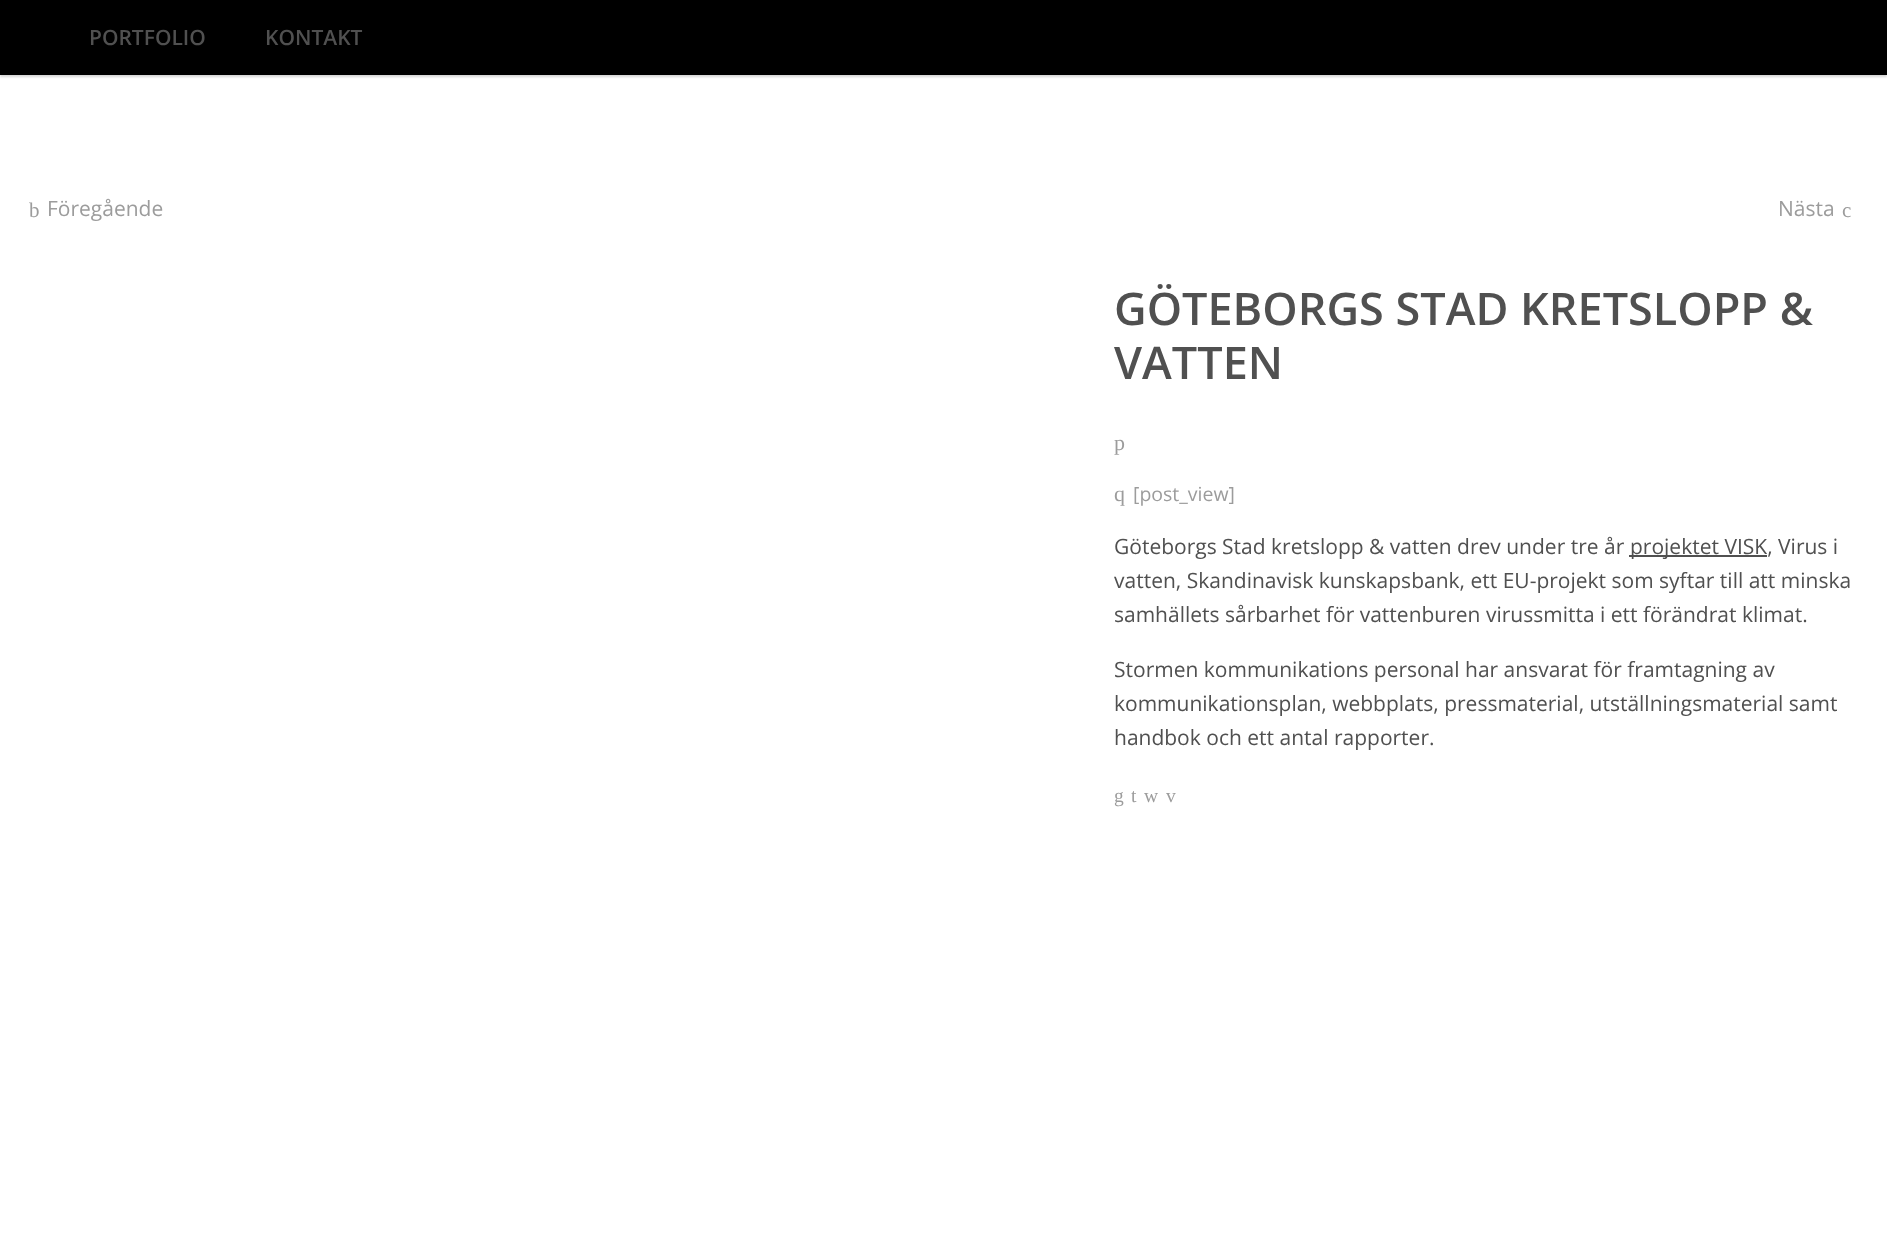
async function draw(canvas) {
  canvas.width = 1887;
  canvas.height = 1234;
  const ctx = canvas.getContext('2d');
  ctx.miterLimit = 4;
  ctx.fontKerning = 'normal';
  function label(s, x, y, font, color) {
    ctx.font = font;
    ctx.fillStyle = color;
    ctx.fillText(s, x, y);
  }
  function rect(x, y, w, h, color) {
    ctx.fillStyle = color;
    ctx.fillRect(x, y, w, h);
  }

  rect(0, 0, 1887, 1234, '#fff');
  ctx.fillStyle = '#00000029';
  ctx.filter = 'blur(1px)';
  ctx.beginPath();
  ctx.rect(0, 2, 1887, 75);
  ctx.fill();
  ctx.filter = 'none';
  rect(0, 0, 1887, 75, '#000');
  label('PORTFOLIO', 89, 45, '600 21px Open Sans', '#505050');
  label('KONTAKT', 265, 45, '600 21px Open Sans', '#505050');
  label('b', 29, 217, '21px Liberation Serif', '#9c9c9c');
  label('Föregående', 47, 216, '21px Open Sans', '#9c9c9c');
  label('Nästa', 1778, 216, '21px Open Sans', '#9c9c9c');
  label('c', 1842, 217, '21px Liberation Serif', '#9c9c9c');
  label('GÖTEBORGS STAD KRETSLOPP &', 1114, 325, '600 45px Open Sans', '#505050');
  label('VATTEN', 1114, 379, '600 45px Open Sans', '#505050');
  label('p', 1114, 450, '22px Liberation Serif', '#9c9c9c');
  label('q', 1114, 501, '22px Liberation Serif', '#9c9c9c');
  label('[post_view]', 1133, 501, '19.5px Open Sans', '#9c9c9c');
  label('Göteborgs Stad kretslopp & vatten drev under tre år', 1114, 554, '21px Open Sans', '#505050');
  rect(1629, 555, 138, 2, '#505050');
  label('projektet VISK, Virus i', 1630, 554, '21px Open Sans', '#505050');
  label('vatten, Skandinavisk kunskapsbank, ett EU-projekt som syftar till att minska', 1114, 588, '21px Open Sans', '#505050');
  label('samhällets sårbarhet för vattenburen virussmitta i ett förändrat klimat.', 1114, 622, '21px Open Sans', '#505050');
  label('Stormen kommunikations personal har ansvarat för framtagning av', 1114, 677, '21px Open Sans', '#505050');
  label('kommunikationsplan, webbplats, pressmaterial, utställningsmaterial samt', 1114, 711, '21px Open Sans', '#505050');
  label('handbok och ett antal rapporter.', 1114, 745, '21px Open Sans', '#505050');
  label('g', 1114, 802, '19.5px Liberation Serif', '#9c9c9c');
  label('t', 1131, 802, '19.5px Liberation Serif', '#9c9c9c');
  label('w', 1144, 802, '19.5px Liberation Serif', '#9c9c9c');
  label('v', 1166, 802, '19.5px Liberation Serif', '#9c9c9c');
}

draw(document.querySelector('canvas'));
